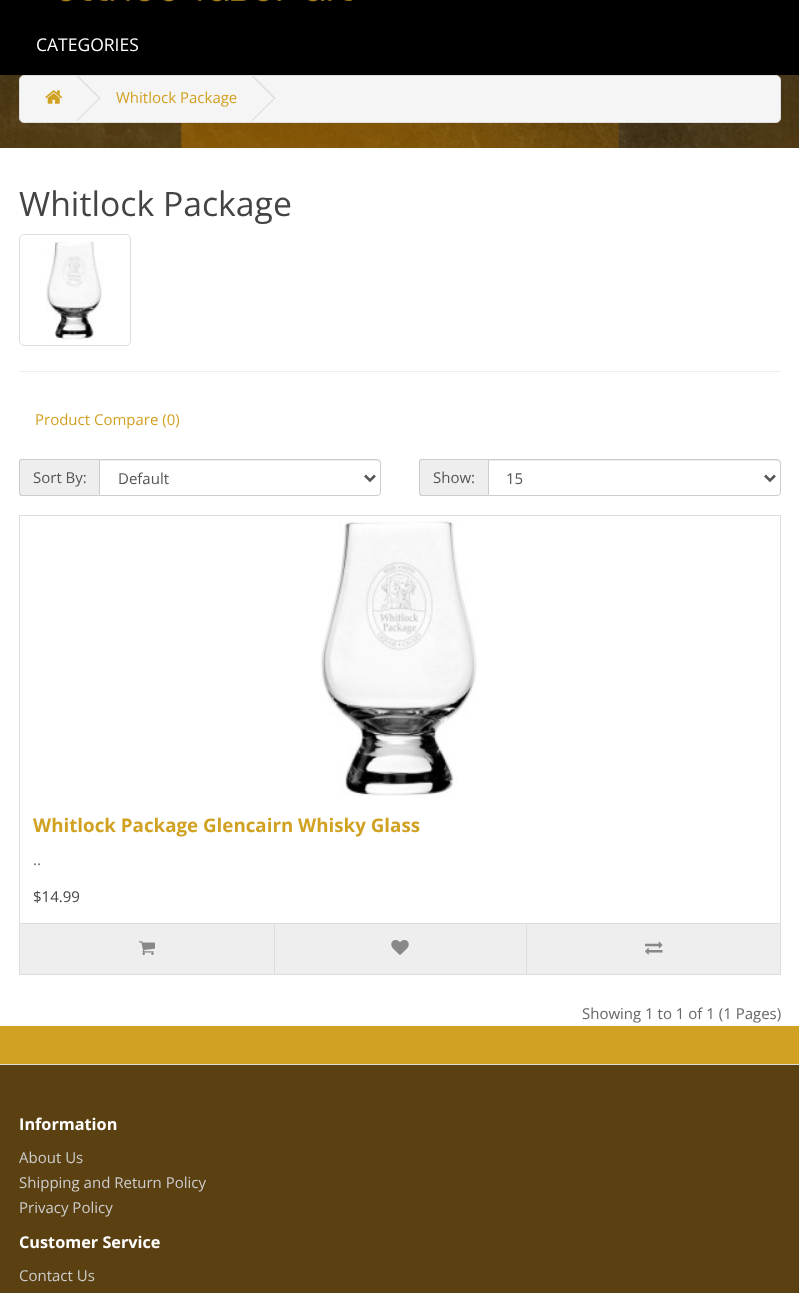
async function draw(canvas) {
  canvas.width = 799;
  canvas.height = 1293;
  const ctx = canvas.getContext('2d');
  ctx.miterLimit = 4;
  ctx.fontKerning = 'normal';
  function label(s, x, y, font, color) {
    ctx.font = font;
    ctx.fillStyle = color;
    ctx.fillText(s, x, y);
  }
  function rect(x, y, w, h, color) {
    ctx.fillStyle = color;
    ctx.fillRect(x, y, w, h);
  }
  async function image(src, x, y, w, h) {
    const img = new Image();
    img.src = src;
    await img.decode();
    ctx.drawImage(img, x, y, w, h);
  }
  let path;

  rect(0, 0, 799, 1293, '#d1a122');
  await image('assets/img1.png', 0, 75, 799, 73);
  rect(0, 0, 799, 75, '#000');
  await image('assets/img2.png', 60, 0, 292, 2);
  label('CATEGORIES', 36, 51, '17.5px Open Sans', '#fff');
  ctx.fillStyle = '#f5f5f5';
  ctx.beginPath();
  ctx.roundRect(19.5, 75.5, 761, 47, 4.5);
  ctx.fill();
  ctx.strokeStyle = '#ddd';
  ctx.stroke();
  await image('assets/img3.png', 45, 90, 18, 14);
  ctx.fillStyle = '#ddd';
  path = new Path2D('M76.5 76L77.5 75L100.5 98L99.5 99Z');
  ctx.fill(path);
  path = new Path2D('M76.5 120.5L99.5 97.5L100.5 98L77.5 121Z');
  ctx.fill(path);
  label('Whitlock Package', 116, 103, '15px Open Sans', '#d1a122');
  ctx.fillStyle = '#ddd';
  path = new Path2D('M251.5 76L252.5 75L275.5 98L274.5 99Z');
  ctx.fill(path);
  path = new Path2D('M251.5 120.5L274.5 97.5L275.5 98L252.5 121Z');
  ctx.fill(path);
  rect(0, 148, 799, 878, '#fff');
  label('Whitlock Package', 19, 216, '33.75px Open Sans', '#444');
  ctx.beginPath();
  ctx.roundRect(19.5, 234.5, 111, 111, 4.5);
  ctx.stroke();
  await image('assets/img4.png', 46, 241, 58, 99);
  rect(19, 371, 762, 1, '#eee');
  label('Product Compare (0)', 35, 425, '15px Open Sans', '#d1a122');
  ctx.fillStyle = '#eee';
  ctx.beginPath();
  ctx.roundRect(19, 459, 80, 37, [4, 0, 0, 4]);
  ctx.fill();
  ctx.fillStyle = '#ccc';
  path = new Path2D('M22 459H99V496H22C20 496 19 495 19 492V462C19 460 20 459 22 459ZM22 460H99V495H22C21 495 20 494 20 492V462C20 461 21 460 22 460Z');
  ctx.fill(path, 'evenodd');
  label('Sort By:', 33, 483, '15px Open Sans', '#555');
  ctx.fillStyle = '#ececec';
  path = new Path2D('M100 461H378L380 462V464C380 462 380 460 378 460H100Z');
  ctx.fill(path);
  ctx.beginPath();
  ctx.roundRect(99.5, 459.5, 281, 36, [0, 3.5, 3.5, 0]);
  ctx.strokeStyle = '#ccc';
  ctx.stroke();
  path = new Path2D('M365 475.5L370 480.5L375 475.5');
  ctx.strokeStyle = '#555';
  ctx.lineWidth = 2.5;
  ctx.stroke(path);
  label('Default', 118, 484, '15px Open Sans', '#555');
  ctx.fillStyle = '#eee';
  ctx.beginPath();
  ctx.roundRect(419, 459, 69, 37, [4, 0, 0, 4]);
  ctx.fill();
  ctx.fillStyle = '#ccc';
  path = new Path2D('M422 459H488V496H422C420 496 419 495 419 492V462C419 460 420 459 422 459ZM422 460H488V495H422C421 495 420 494 420 492V462C420 461 421 460 422 460Z');
  ctx.fill(path, 'evenodd');
  label('Show:', 433, 483, '15px Open Sans', '#555');
  ctx.fillStyle = '#ececec';
  path = new Path2D('M489 461H778C779 461 780 462 780 464C780 462 780 460 778 460H489Z');
  ctx.fill(path);
  ctx.beginPath();
  ctx.roundRect(488.5, 459.5, 292, 36, [0, 3.5, 3.5, 0]);
  ctx.strokeStyle = '#ccc';
  ctx.lineWidth = 1;
  ctx.stroke();
  path = new Path2D('M765 475.5L770 480.5L775 475.5');
  ctx.strokeStyle = '#555';
  ctx.lineWidth = 2.5;
  ctx.stroke(path);
  label('15', 506, 484, '15px Open Sans', '#555');
  ctx.strokeStyle = '#ddd';
  ctx.lineWidth = 1;
  ctx.strokeRect(19.5, 515.5, 761, 459);
  await image('assets/img5.png', 320, 519, 157, 277);
  label('Whitlock Package Glencairn Whisky Glass', 33, 832, 'bold 18.75px Open Sans', '#d1a122');
  label('..', 33, 865, '15px Open Sans', '#666');
  label('$14.99', 33, 902, '15px Open Sans', '#444');
  rect(20, 924, 760, 50, '#eee');
  rect(20, 923, 760, 1, '#ddd');
  await image('assets/img6.png', 138, 941, 17, 14);
  rect(274, 924, 1, 50, '#ddd');
  await image('assets/img7.png', 391, 940, 18, 15);
  rect(526, 924, 1, 50, '#ddd');
  await image('assets/img8.png', 645, 941, 18, 14);
  label('Showing 1 to 1 of 1 (1 Pages)', 582, 1019, '15px Open Sans', '#666');
  rect(0, 1065, 799, 228, '#5b4011');
  rect(0, 1064, 799, 1, '#ddd');
  label('Information', 19, 1130, 'bold 16.25px Open Sans', '#fff');
  label('About Us', 19, 1163, '15px Open Sans', '#ccc');
  label('Shipping and Return Policy', 19, 1188, '15px Open Sans', '#ccc');
  label('Privacy Policy', 19, 1213, '15px Open Sans', '#ccc');
  label('Customer Service', 19, 1248, 'bold 16.25px Open Sans', '#fff');
  label('Contact Us', 19, 1281, '15px Open Sans', '#ccc');
}

draw(document.querySelector('canvas'));
